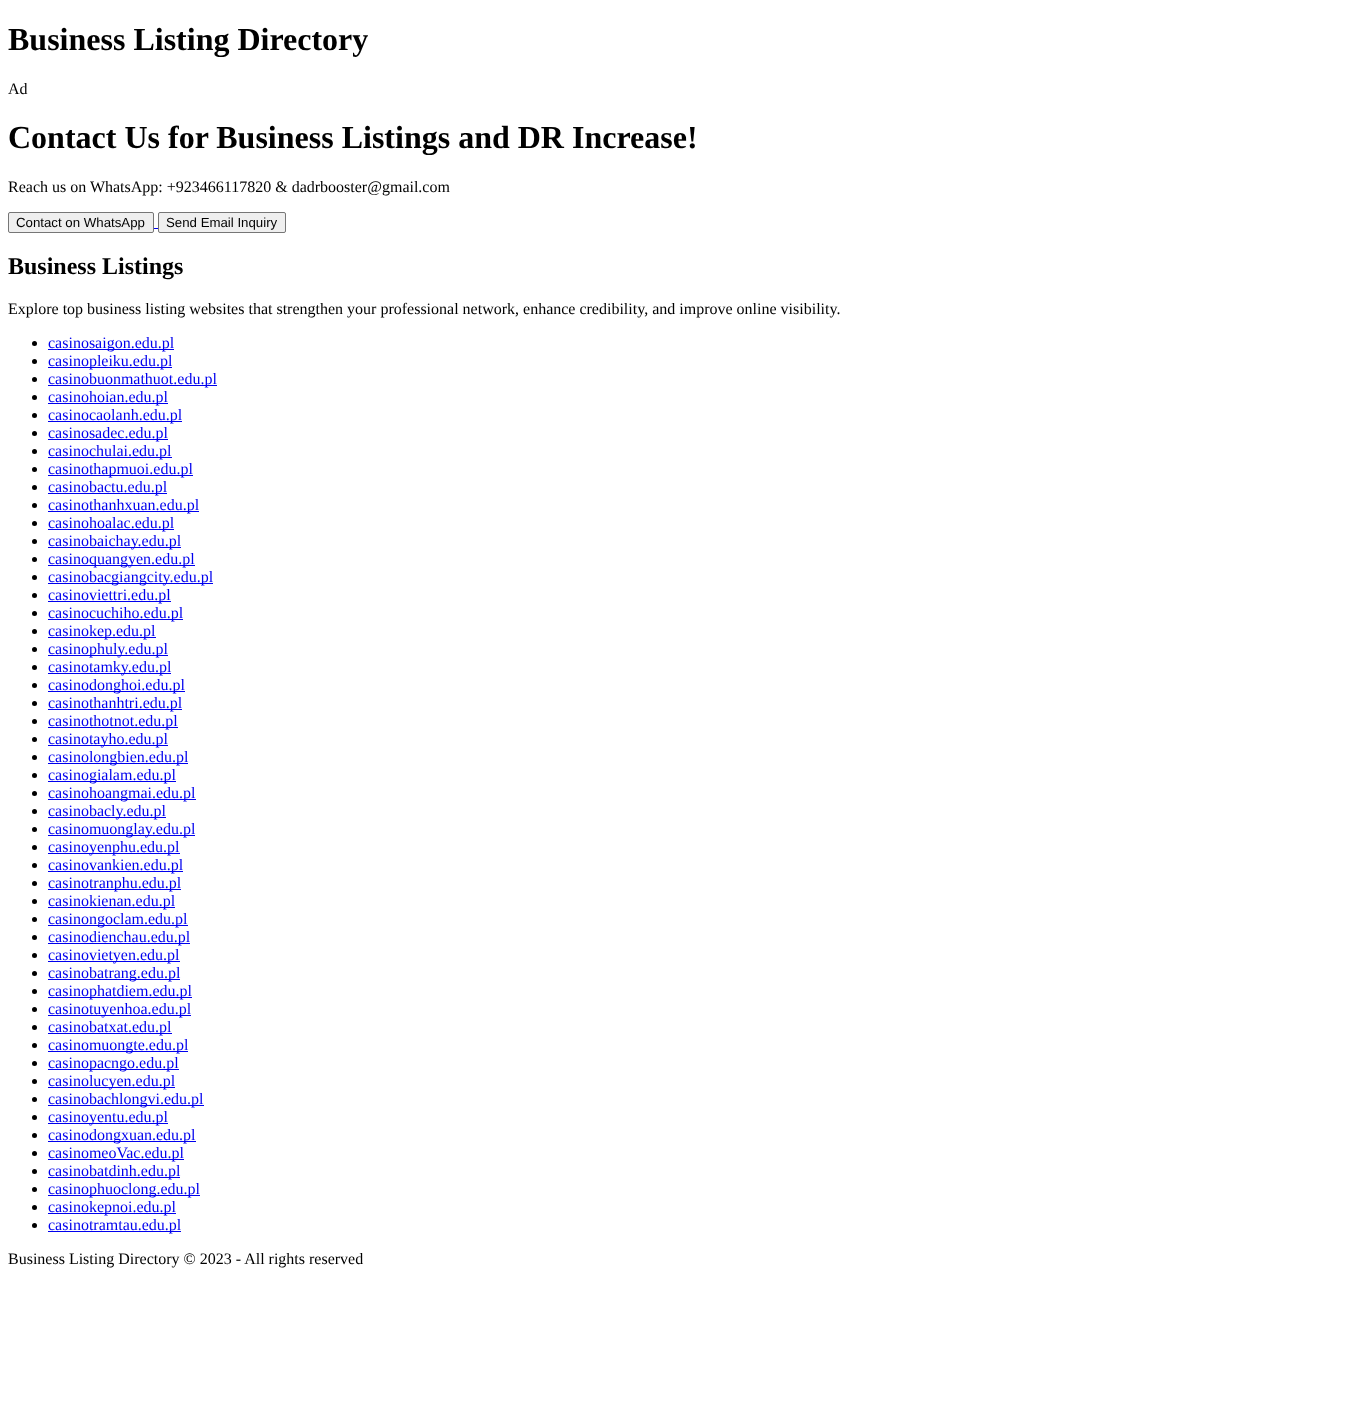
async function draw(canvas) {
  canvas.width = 1358;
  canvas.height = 1417;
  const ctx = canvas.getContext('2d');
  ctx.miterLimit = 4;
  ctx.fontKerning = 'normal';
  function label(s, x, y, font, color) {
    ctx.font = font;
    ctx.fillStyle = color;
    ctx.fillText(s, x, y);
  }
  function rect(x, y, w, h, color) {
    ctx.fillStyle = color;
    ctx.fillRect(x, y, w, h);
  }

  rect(0, 0, 1358, 1417, '#fff');
  label('Business Listing Directory', 8, 50, 'bold 32px Liberation Serif', '#000');
  label('Ad', 8, 94, '16px Liberation Serif', '#000');
  label('Contact Us for Business Listings and DR Increase!', 8, 148, 'bold 32px Liberation Serif', '#000');
  label('Reach us on WhatsApp: +923466117820 & dadrbooster@gmail.com', 8, 192, '16px Liberation Serif', '#000');
  ctx.fillStyle = '#efefef';
  ctx.beginPath();
  ctx.roundRect(8.5, 212.5, 145, 20, 1.5);
  ctx.fill();
  ctx.strokeStyle = '#767676';
  ctx.stroke();
  label('Contact on WhatsApp', 16, 227, '13.25px Liberation Sans', '#000');
  rect(154, 228, 4, 1, '#00e');
  ctx.fillStyle = '#efefef';
  ctx.beginPath();
  ctx.roundRect(158.5, 212.5, 127, 20, 1.5);
  ctx.fill();
  ctx.stroke();
  label('Send Email Inquiry', 166, 227, '13.25px Liberation Sans', '#000');
  label('Business Listings', 8, 274, 'bold 24px Liberation Serif', '#000');
  label('Explore top business listing websites that strengthen your professional network, enhance credibility, and improve online visibility.', 8, 314, '16px Liberation Serif', '#000');
  ctx.beginPath();
  ctx.arc(34.5, 343.5, 2.5, 0, 2 * Math.PI);
  ctx.fill();
  rect(48, 349, 126, 1, '#00e');
  label('casinosaigon.edu.pl', 48, 348, '16px Liberation Serif', '#00e');
  ctx.fillStyle = '#000';
  ctx.beginPath();
  ctx.arc(34.5, 361.5, 2.5, 0, 2 * Math.PI);
  ctx.fill();
  rect(48, 367, 124, 1, '#00e');
  label('casinopleiku.edu.pl', 48, 366, '16px Liberation Serif', '#00e');
  ctx.fillStyle = '#000';
  ctx.beginPath();
  ctx.arc(34.5, 379.5, 2.5, 0, 2 * Math.PI);
  ctx.fill();
  rect(48, 385, 169, 1, '#00e');
  label('casinobuonmathuot.edu.pl', 48, 384, '16px Liberation Serif', '#00e');
  ctx.fillStyle = '#000';
  ctx.beginPath();
  ctx.arc(34.5, 397.5, 2.5, 0, 2 * Math.PI);
  ctx.fill();
  rect(48, 403, 120, 1, '#00e');
  label('casinohoian.edu.pl', 48, 402, '16px Liberation Serif', '#00e');
  ctx.fillStyle = '#000';
  ctx.beginPath();
  ctx.arc(34.5, 415.5, 2.5, 0, 2 * Math.PI);
  ctx.fill();
  rect(48, 421, 134, 1, '#00e');
  label('casinocaolanh.edu.pl', 48, 420, '16px Liberation Serif', '#00e');
  ctx.fillStyle = '#000';
  ctx.beginPath();
  ctx.arc(34.5, 433.5, 2.5, 0, 2 * Math.PI);
  ctx.fill();
  rect(48, 439, 120, 1, '#00e');
  label('casinosadec.edu.pl', 48, 438, '16px Liberation Serif', '#00e');
  ctx.fillStyle = '#000';
  ctx.beginPath();
  ctx.arc(34.5, 451.5, 2.5, 0, 2 * Math.PI);
  ctx.fill();
  rect(48, 457, 124, 1, '#00e');
  label('casinochulai.edu.pl', 48, 456, '16px Liberation Serif', '#00e');
  ctx.fillStyle = '#000';
  ctx.beginPath();
  ctx.arc(34.5, 469.5, 2.5, 0, 2 * Math.PI);
  ctx.fill();
  rect(48, 475, 145, 1, '#00e');
  label('casinothapmuoi.edu.pl', 48, 474, '16px Liberation Serif', '#00e');
  ctx.fillStyle = '#000';
  ctx.beginPath();
  ctx.arc(34.5, 487.5, 2.5, 0, 2 * Math.PI);
  ctx.fill();
  rect(48, 493, 119, 1, '#00e');
  label('casinobactu.edu.pl', 48, 492, '16px Liberation Serif', '#00e');
  ctx.fillStyle = '#000';
  ctx.beginPath();
  ctx.arc(34.5, 505.5, 2.5, 0, 2 * Math.PI);
  ctx.fill();
  rect(48, 511, 151, 1, '#00e');
  label('casinothanhxuan.edu.pl', 48, 510, '16px Liberation Serif', '#00e');
  ctx.fillStyle = '#000';
  ctx.beginPath();
  ctx.arc(34.5, 523.5, 2.5, 0, 2 * Math.PI);
  ctx.fill();
  rect(48, 529, 126, 1, '#00e');
  label('casinohoalac.edu.pl', 48, 528, '16px Liberation Serif', '#00e');
  ctx.fillStyle = '#000';
  ctx.beginPath();
  ctx.arc(34.5, 541.5, 2.5, 0, 2 * Math.PI);
  ctx.fill();
  rect(48, 547, 133, 1, '#00e');
  label('casinobaichay.edu.pl', 48, 546, '16px Liberation Serif', '#00e');
  ctx.fillStyle = '#000';
  ctx.beginPath();
  ctx.arc(34.5, 559.5, 2.5, 0, 2 * Math.PI);
  ctx.fill();
  rect(48, 565, 147, 1, '#00e');
  label('casinoquangyen.edu.pl', 48, 564, '16px Liberation Serif', '#00e');
  ctx.fillStyle = '#000';
  ctx.beginPath();
  ctx.arc(34.5, 577.5, 2.5, 0, 2 * Math.PI);
  ctx.fill();
  rect(48, 583, 165, 1, '#00e');
  label('casinobacgiangcity.edu.pl', 48, 582, '16px Liberation Serif', '#00e');
  ctx.fillStyle = '#000';
  ctx.beginPath();
  ctx.arc(34.5, 595.5, 2.5, 0, 2 * Math.PI);
  ctx.fill();
  rect(48, 601, 123, 1, '#00e');
  label('casinoviettri.edu.pl', 48, 600, '16px Liberation Serif', '#00e');
  ctx.fillStyle = '#000';
  ctx.beginPath();
  ctx.arc(34.5, 613.5, 2.5, 0, 2 * Math.PI);
  ctx.fill();
  rect(48, 619, 135, 1, '#00e');
  label('casinocuchiho.edu.pl', 48, 618, '16px Liberation Serif', '#00e');
  ctx.fillStyle = '#000';
  ctx.beginPath();
  ctx.arc(34.5, 631.5, 2.5, 0, 2 * Math.PI);
  ctx.fill();
  rect(48, 637, 108, 1, '#00e');
  label('casinokep.edu.pl', 48, 636, '16px Liberation Serif', '#00e');
  ctx.fillStyle = '#000';
  ctx.beginPath();
  ctx.arc(34.5, 649.5, 2.5, 0, 2 * Math.PI);
  ctx.fill();
  rect(48, 655, 120, 1, '#00e');
  label('casinophuly.edu.pl', 48, 654, '16px Liberation Serif', '#00e');
  ctx.fillStyle = '#000';
  ctx.beginPath();
  ctx.arc(34.5, 667.5, 2.5, 0, 2 * Math.PI);
  ctx.fill();
  rect(48, 673, 123, 1, '#00e');
  label('casinotamky.edu.pl', 48, 672, '16px Liberation Serif', '#00e');
  ctx.fillStyle = '#000';
  ctx.beginPath();
  ctx.arc(34.5, 685.5, 2.5, 0, 2 * Math.PI);
  ctx.fill();
  rect(48, 691, 137, 1, '#00e');
  label('casinodonghoi.edu.pl', 48, 690, '16px Liberation Serif', '#00e');
  ctx.fillStyle = '#000';
  ctx.beginPath();
  ctx.arc(34.5, 703.5, 2.5, 0, 2 * Math.PI);
  ctx.fill();
  rect(48, 709, 134, 1, '#00e');
  label('casinothanhtri.edu.pl', 48, 708, '16px Liberation Serif', '#00e');
  ctx.fillStyle = '#000';
  ctx.beginPath();
  ctx.arc(34.5, 721.5, 2.5, 0, 2 * Math.PI);
  ctx.fill();
  rect(48, 727, 130, 1, '#00e');
  label('casinothotnot.edu.pl', 48, 726, '16px Liberation Serif', '#00e');
  ctx.fillStyle = '#000';
  ctx.beginPath();
  ctx.arc(34.5, 739.5, 2.5, 0, 2 * Math.PI);
  ctx.fill();
  rect(48, 745, 120, 1, '#00e');
  label('casinotayho.edu.pl', 48, 744, '16px Liberation Serif', '#00e');
  ctx.fillStyle = '#000';
  ctx.beginPath();
  ctx.arc(34.5, 757.5, 2.5, 0, 2 * Math.PI);
  ctx.fill();
  rect(48, 763, 140, 1, '#00e');
  label('casinolongbien.edu.pl', 48, 762, '16px Liberation Serif', '#00e');
  ctx.fillStyle = '#000';
  ctx.beginPath();
  ctx.arc(34.5, 775.5, 2.5, 0, 2 * Math.PI);
  ctx.fill();
  rect(48, 781, 128, 1, '#00e');
  label('casinogialam.edu.pl', 48, 780, '16px Liberation Serif', '#00e');
  ctx.fillStyle = '#000';
  ctx.beginPath();
  ctx.arc(34.5, 793.5, 2.5, 0, 2 * Math.PI);
  ctx.fill();
  rect(48, 799, 148, 1, '#00e');
  label('casinohoangmai.edu.pl', 48, 798, '16px Liberation Serif', '#00e');
  ctx.fillStyle = '#000';
  ctx.beginPath();
  ctx.arc(34.5, 811.5, 2.5, 0, 2 * Math.PI);
  ctx.fill();
  rect(48, 817, 118, 1, '#00e');
  label('casinobacly.edu.pl', 48, 816, '16px Liberation Serif', '#00e');
  ctx.fillStyle = '#000';
  ctx.beginPath();
  ctx.arc(34.5, 829.5, 2.5, 0, 2 * Math.PI);
  ctx.fill();
  rect(48, 835, 147, 1, '#00e');
  label('casinomuonglay.edu.pl', 48, 834, '16px Liberation Serif', '#00e');
  ctx.fillStyle = '#000';
  ctx.beginPath();
  ctx.arc(34.5, 847.5, 2.5, 0, 2 * Math.PI);
  ctx.fill();
  rect(48, 853, 132, 1, '#00e');
  label('casinoyenphu.edu.pl', 48, 852, '16px Liberation Serif', '#00e');
  ctx.fillStyle = '#000';
  ctx.beginPath();
  ctx.arc(34.5, 865.5, 2.5, 0, 2 * Math.PI);
  ctx.fill();
  rect(48, 871, 135, 1, '#00e');
  label('casinovankien.edu.pl', 48, 870, '16px Liberation Serif', '#00e');
  ctx.fillStyle = '#000';
  ctx.beginPath();
  ctx.arc(34.5, 883.5, 2.5, 0, 2 * Math.PI);
  ctx.fill();
  rect(48, 889, 133, 1, '#00e');
  label('casinotranphu.edu.pl', 48, 888, '16px Liberation Serif', '#00e');
  ctx.fillStyle = '#000';
  ctx.beginPath();
  ctx.arc(34.5, 901.5, 2.5, 0, 2 * Math.PI);
  ctx.fill();
  rect(48, 907, 127, 1, '#00e');
  label('casinokienan.edu.pl', 48, 906, '16px Liberation Serif', '#00e');
  ctx.fillStyle = '#000';
  ctx.beginPath();
  ctx.arc(34.5, 919.5, 2.5, 0, 2 * Math.PI);
  ctx.fill();
  rect(48, 925, 140, 1, '#00e');
  label('casinongoclam.edu.pl', 48, 924, '16px Liberation Serif', '#00e');
  ctx.fillStyle = '#000';
  ctx.beginPath();
  ctx.arc(34.5, 937.5, 2.5, 0, 2 * Math.PI);
  ctx.fill();
  rect(48, 943, 142, 1, '#00e');
  label('casinodienchau.edu.pl', 48, 942, '16px Liberation Serif', '#00e');
  ctx.fillStyle = '#000';
  ctx.beginPath();
  ctx.arc(34.5, 955.5, 2.5, 0, 2 * Math.PI);
  ctx.fill();
  rect(48, 961, 132, 1, '#00e');
  label('casinovietyen.edu.pl', 48, 960, '16px Liberation Serif', '#00e');
  ctx.fillStyle = '#000';
  ctx.beginPath();
  ctx.arc(34.5, 973.5, 2.5, 0, 2 * Math.PI);
  ctx.fill();
  rect(48, 979, 132, 1, '#00e');
  label('casinobatrang.edu.pl', 48, 978, '16px Liberation Serif', '#00e');
  ctx.fillStyle = '#000';
  ctx.beginPath();
  ctx.arc(34.5, 991.5, 2.5, 0, 2 * Math.PI);
  ctx.fill();
  rect(48, 997, 144, 1, '#00e');
  label('casinophatdiem.edu.pl', 48, 996, '16px Liberation Serif', '#00e');
  ctx.fillStyle = '#000';
  ctx.beginPath();
  ctx.arc(34.5, 1009.5, 2.5, 0, 2 * Math.PI);
  ctx.fill();
  rect(48, 1015, 143, 1, '#00e');
  label('casinotuyenhoa.edu.pl', 48, 1014, '16px Liberation Serif', '#00e');
  ctx.fillStyle = '#000';
  ctx.beginPath();
  ctx.arc(34.5, 1027.5, 2.5, 0, 2 * Math.PI);
  ctx.fill();
  rect(48, 1033, 124, 1, '#00e');
  label('casinobatxat.edu.pl', 48, 1032, '16px Liberation Serif', '#00e');
  ctx.fillStyle = '#000';
  ctx.beginPath();
  ctx.arc(34.5, 1045.5, 2.5, 0, 2 * Math.PI);
  ctx.fill();
  rect(48, 1051, 140, 1, '#00e');
  label('casinomuongte.edu.pl', 48, 1050, '16px Liberation Serif', '#00e');
  ctx.fillStyle = '#000';
  ctx.beginPath();
  ctx.arc(34.5, 1063.5, 2.5, 0, 2 * Math.PI);
  ctx.fill();
  rect(48, 1069, 131, 1, '#00e');
  label('casinopacngo.edu.pl', 48, 1068, '16px Liberation Serif', '#00e');
  ctx.fillStyle = '#000';
  ctx.beginPath();
  ctx.arc(34.5, 1081.5, 2.5, 0, 2 * Math.PI);
  ctx.fill();
  rect(48, 1087, 127, 1, '#00e');
  label('casinolucyen.edu.pl', 48, 1086, '16px Liberation Serif', '#00e');
  ctx.fillStyle = '#000';
  ctx.beginPath();
  ctx.arc(34.5, 1099.5, 2.5, 0, 2 * Math.PI);
  ctx.fill();
  rect(48, 1105, 156, 1, '#00e');
  label('casinobachlongvi.edu.pl', 48, 1104, '16px Liberation Serif', '#00e');
  ctx.fillStyle = '#000';
  ctx.beginPath();
  ctx.arc(34.5, 1117.5, 2.5, 0, 2 * Math.PI);
  ctx.fill();
  rect(48, 1123, 120, 1, '#00e');
  label('casinoyentu.edu.pl', 48, 1122, '16px Liberation Serif', '#00e');
  ctx.fillStyle = '#000';
  ctx.beginPath();
  ctx.arc(34.5, 1135.5, 2.5, 0, 2 * Math.PI);
  ctx.fill();
  rect(48, 1141, 148, 1, '#00e');
  label('casinodongxuan.edu.pl', 48, 1140, '16px Liberation Serif', '#00e');
  ctx.fillStyle = '#000';
  ctx.beginPath();
  ctx.arc(34.5, 1153.5, 2.5, 0, 2 * Math.PI);
  ctx.fill();
  rect(48, 1159, 136, 1, '#00e');
  label('casinomeoVac.edu.pl', 48, 1158, '16px Liberation Serif', '#00e');
  ctx.fillStyle = '#000';
  ctx.beginPath();
  ctx.arc(34.5, 1171.5, 2.5, 0, 2 * Math.PI);
  ctx.fill();
  rect(48, 1177, 132, 1, '#00e');
  label('casinobatdinh.edu.pl', 48, 1176, '16px Liberation Serif', '#00e');
  ctx.fillStyle = '#000';
  ctx.beginPath();
  ctx.arc(34.5, 1189.5, 2.5, 0, 2 * Math.PI);
  ctx.fill();
  rect(48, 1195, 152, 1, '#00e');
  label('casinophuoclong.edu.pl', 48, 1194, '16px Liberation Serif', '#00e');
  ctx.fillStyle = '#000';
  ctx.beginPath();
  ctx.arc(34.5, 1207.5, 2.5, 0, 2 * Math.PI);
  ctx.fill();
  rect(48, 1213, 128, 1, '#00e');
  label('casinokepnoi.edu.pl', 48, 1212, '16px Liberation Serif', '#00e');
  ctx.fillStyle = '#000';
  ctx.beginPath();
  ctx.arc(34.5, 1225.5, 2.5, 0, 2 * Math.PI);
  ctx.fill();
  rect(48, 1231, 133, 1, '#00e');
  label('casinotramtau.edu.pl', 48, 1230, '16px Liberation Serif', '#00e');
  label('Business Listing Directory © 2023 - All rights reserved', 8, 1264, '16px Liberation Serif', '#000');
}

draw(document.querySelector('canvas'));
